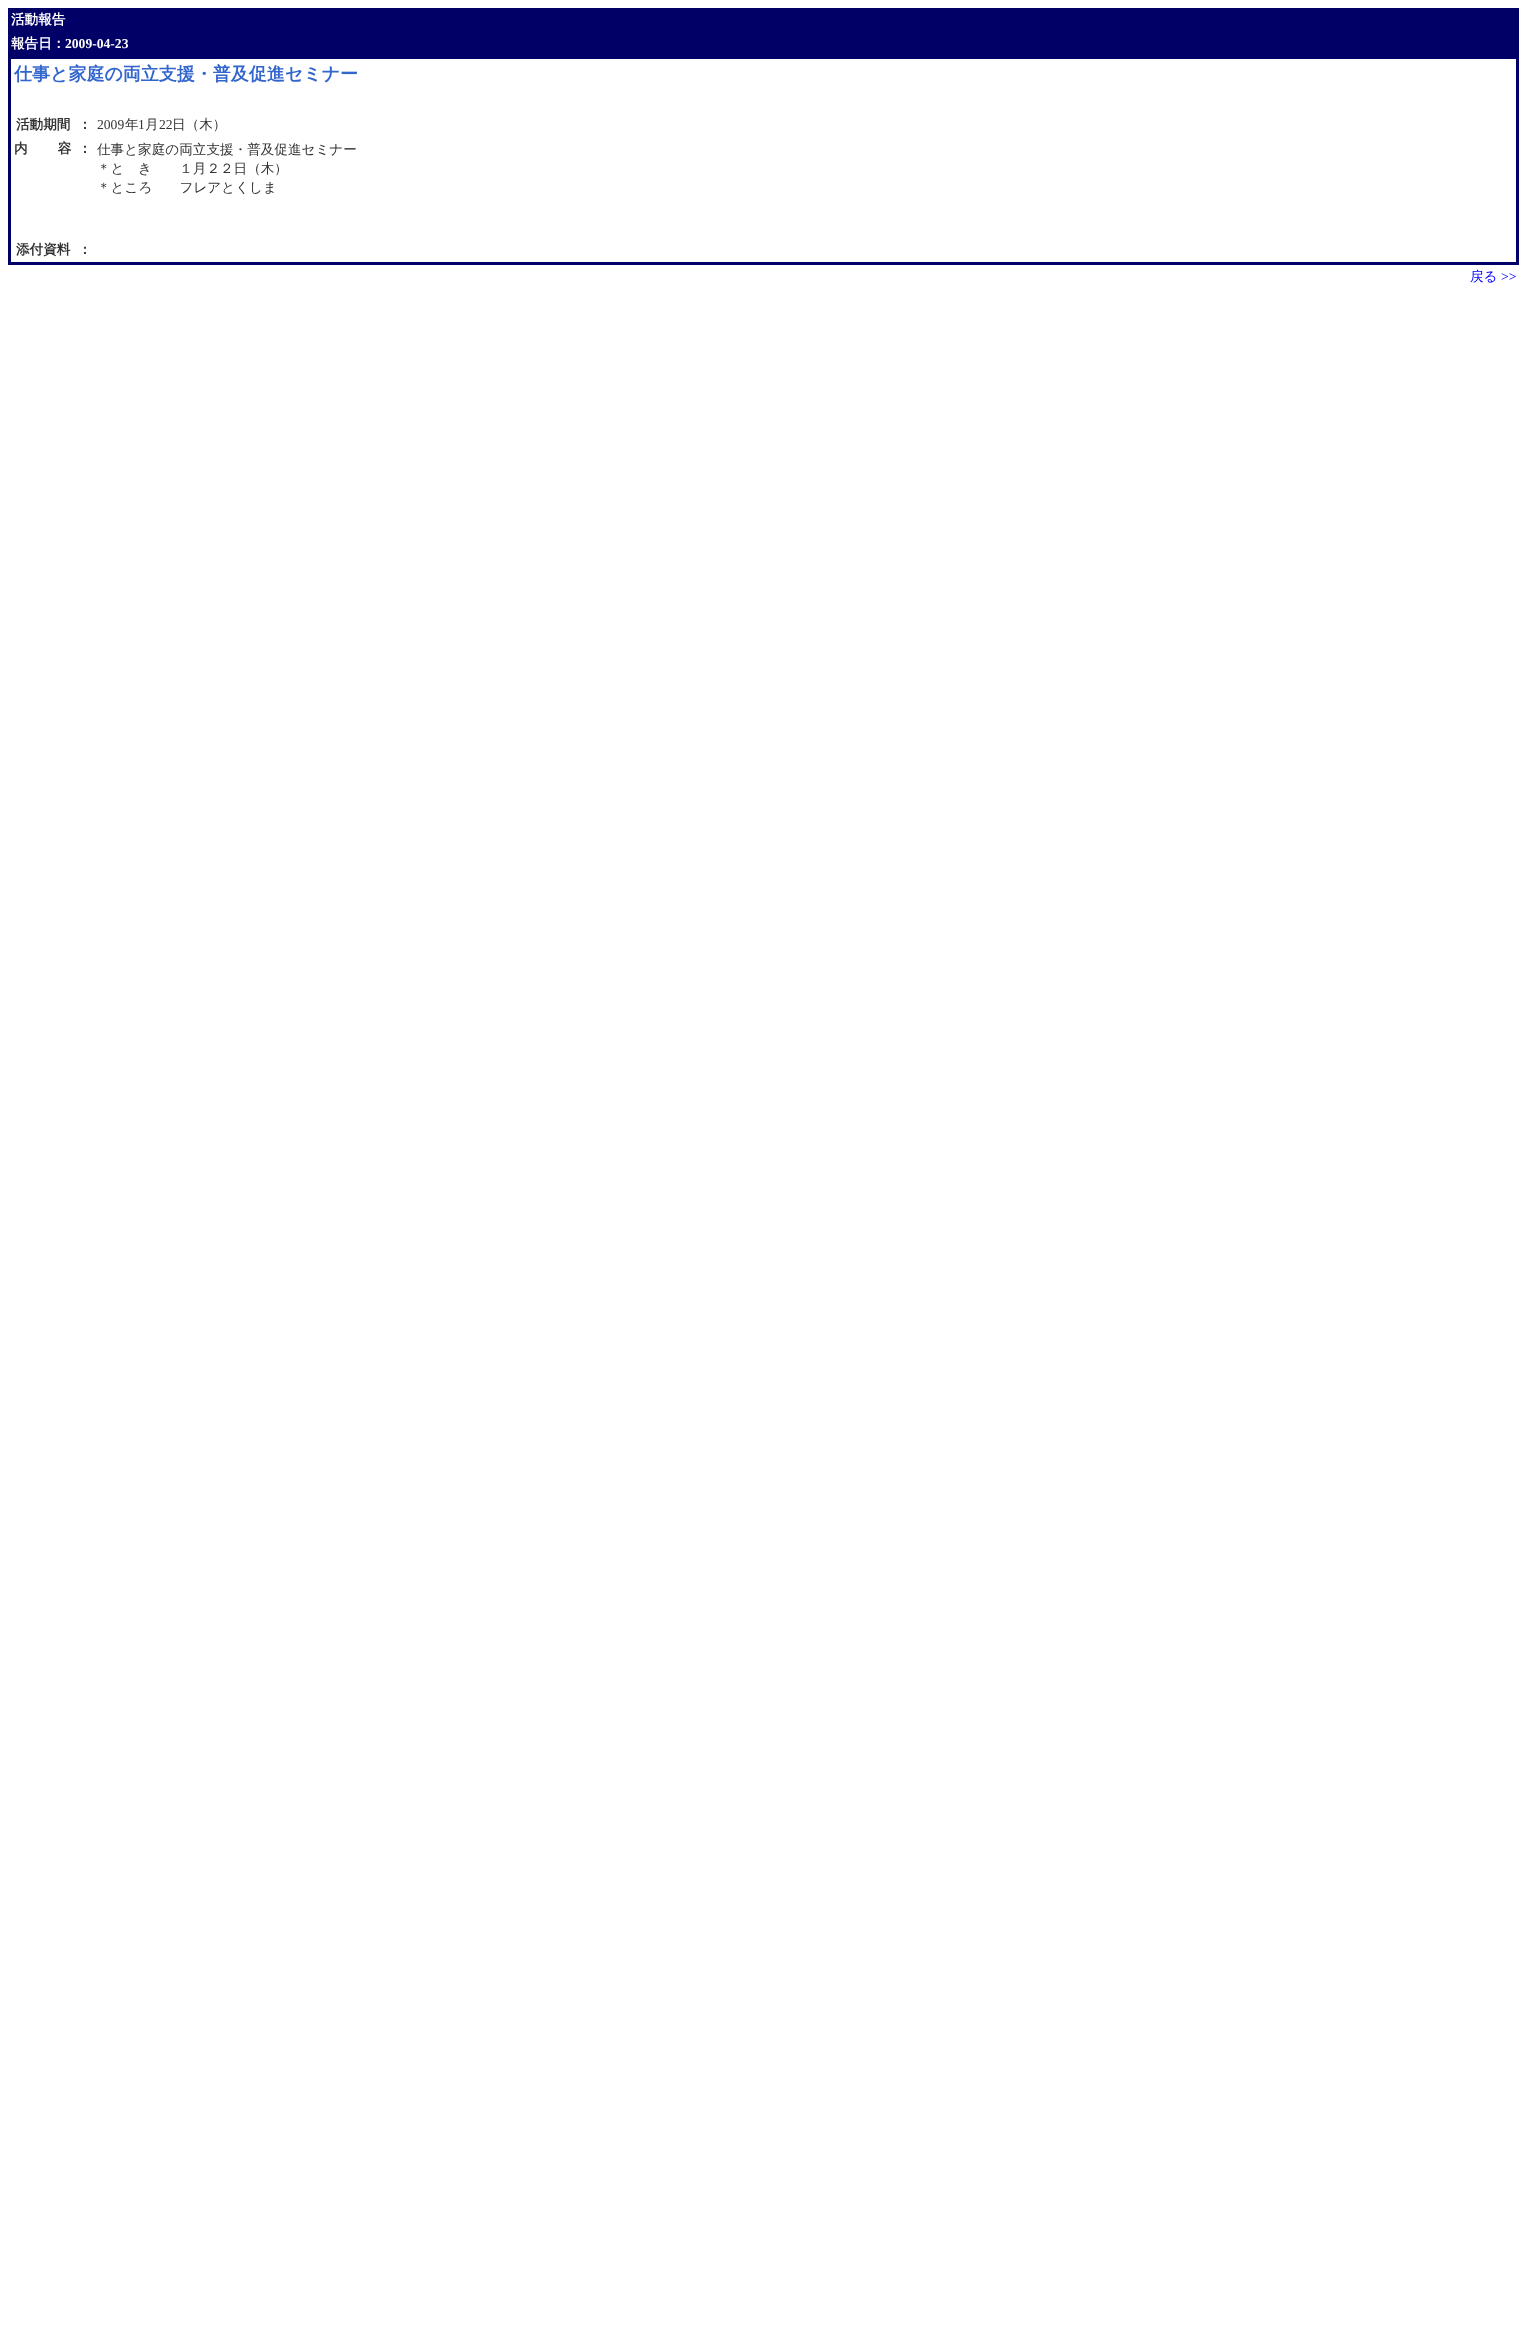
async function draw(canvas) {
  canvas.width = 1527;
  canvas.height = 2332;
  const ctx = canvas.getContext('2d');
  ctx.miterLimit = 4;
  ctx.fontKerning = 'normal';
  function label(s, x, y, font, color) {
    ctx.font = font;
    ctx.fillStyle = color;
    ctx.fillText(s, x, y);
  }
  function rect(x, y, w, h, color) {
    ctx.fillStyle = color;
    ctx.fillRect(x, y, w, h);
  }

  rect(0, 0, 1527, 2332, '#fff');
  rect(8, 8, 1511, 257, '#006');
  label('活動報告', 11, 24, 'bold 13.6px WenQuanYi Zen Hei', '#fff');
  label('報告日：', 11, 48, 'bold 13.6px WenQuanYi Zen Hei', '#fff');
  label('2009-04-23', 65, 48, 'bold 13.6px Liberation Serif', '#fff');
  rect(11, 59, 1505, 203, '#fff');
  label('仕事と家庭の両立支援・普及促進セミナー', 14, 80, 'bold 18px WenQuanYi Zen Hei', '#36c');
  label('活動期間', 16, 129, 'bold 13.6px WenQuanYi Zen Hei', '#333');
  label('：', 78, 129, 'bold 13.6px WenQuanYi Zen Hei', '#333');
  label('2009', 97, 129, '13.6px Liberation Serif', '#333');
  label('年', 125, 129, '500 13.6px WenQuanYi Zen Hei', '#333');
  label('1', 138, 129, '13.6px Liberation Serif', '#333');
  label('月', 145, 129, '500 13.6px WenQuanYi Zen Hei', '#333');
  label('22', 159, 129, '13.6px Liberation Serif', '#333');
  label('日（木）', 172, 129, '500 13.6px WenQuanYi Zen Hei', '#333');
  ctx.wordSpacing = '-1px';
  label('内 　　容', 14, 153, 'bold 13.6px WenQuanYi Zen Hei', '#333');
  ctx.wordSpacing = '0px';
  label('：', 78, 153, 'bold 13.6px WenQuanYi Zen Hei', '#333');
  label('仕事と家庭の両立支援・普及促進セミナー', 97, 154, '500 13.6px WenQuanYi Zen Hei', '#333');
  label('＊と　き　　１月２２日（木）', 97, 173, '500 13.6px WenQuanYi Zen Hei', '#333');
  label('＊ところ　　フレアとくしま', 97, 192, '500 13.6px WenQuanYi Zen Hei', '#333');
  label('添付資料', 16, 254, 'bold 13.6px WenQuanYi Zen Hei', '#333');
  label('：', 78, 254, 'bold 13.6px WenQuanYi Zen Hei', '#333');
  label('戻る', 1470, 281, '500 13.6px WenQuanYi Zen Hei', '#00f');
  label('>>', 1501, 281, '13.6px Liberation Serif', '#00f');
}

draw(document.querySelector('canvas'));
